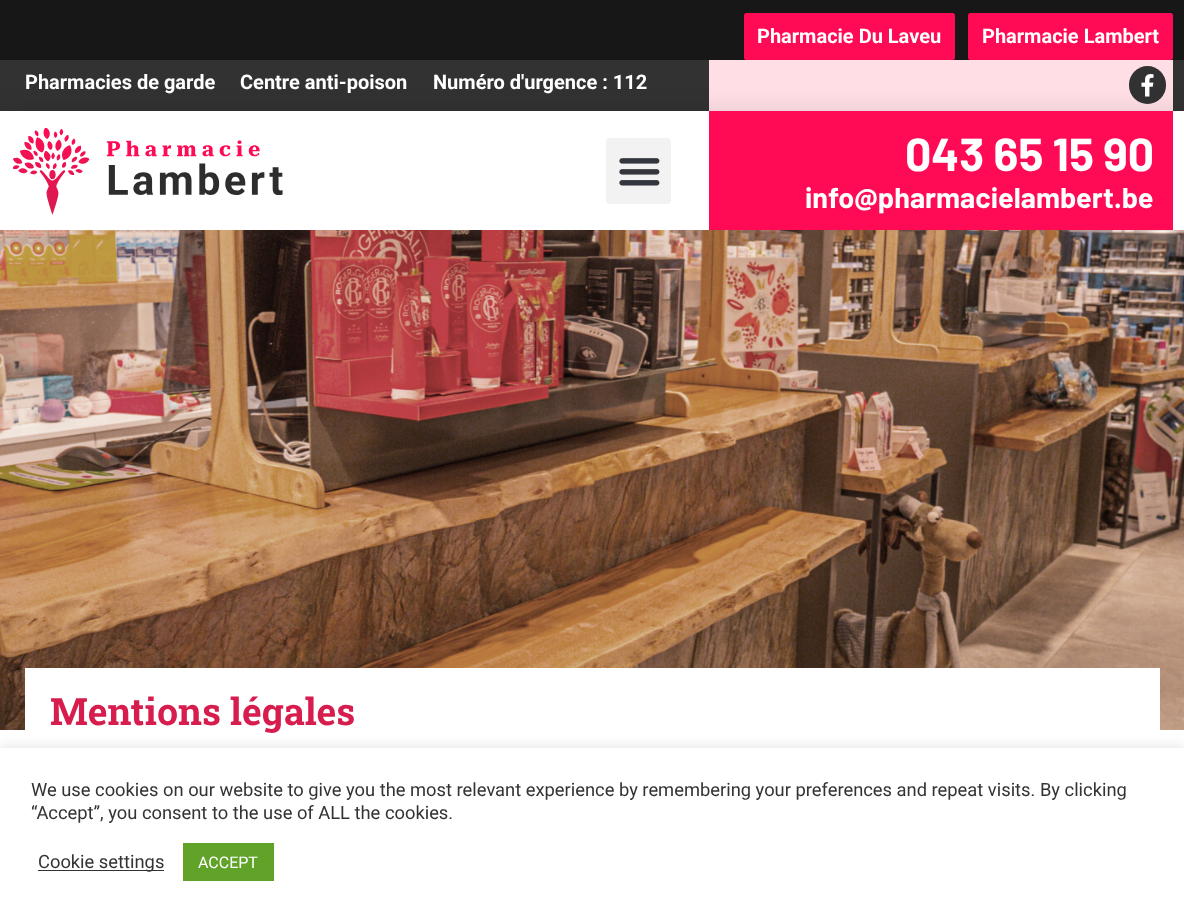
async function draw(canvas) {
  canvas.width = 1184;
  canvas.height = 918;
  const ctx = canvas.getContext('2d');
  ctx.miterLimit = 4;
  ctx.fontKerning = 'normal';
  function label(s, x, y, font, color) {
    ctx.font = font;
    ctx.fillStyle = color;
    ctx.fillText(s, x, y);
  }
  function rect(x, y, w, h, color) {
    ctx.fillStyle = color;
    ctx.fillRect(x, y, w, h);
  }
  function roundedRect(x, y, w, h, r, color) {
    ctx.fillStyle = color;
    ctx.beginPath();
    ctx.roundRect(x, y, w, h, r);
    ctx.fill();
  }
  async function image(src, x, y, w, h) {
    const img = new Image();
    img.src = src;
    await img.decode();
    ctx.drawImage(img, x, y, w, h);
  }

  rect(0, 0, 1184, 918, '#fff');
  rect(0, 0, 1184, 60, '#171717');
  roundedRect(744, 13, 211, 47, 2.5, '#ff0b55');
  label('Pharmacie Du Laveu', 757, 43, 'bold 20px Roboto', '#fff');
  roundedRect(968, 13, 205, 47, 2.5, '#ff0b55');
  label('Pharmacie Lambert', 982, 43, 'bold 20px Roboto', '#fff');
  rect(0, 60, 1184, 51, '#323232');
  label('Pharmacies de garde', 25, 89, 'bold 20px Roboto', '#fff');
  label('Centre anti-poison', 240, 89, 'bold 20px Roboto', '#fff');
  label('Numéro d\'urgence : 112', 433, 89, 'bold 20px Roboto', '#fff');
  rect(709, 60, 464, 51, '#ffdee6');
  roundedRect(1129, 66, 37, 38, 18.5, '#323232');
  await image('assets/img1.png', 1141, 74, 13, 23);
  ctx.fillStyle = '#0000001a';
  ctx.filter = 'blur(12.5px)';
  ctx.beginPath();
  ctx.rect(0, 111, 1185, 119);
  ctx.fill();
  ctx.filter = 'none';
  rect(0, 111, 1184, 119, '#fff');
  await image('assets/img2.png', 13, 128, 270, 87);
  roundedRect(606, 138, 65, 66, 4, '#f2f2f2');
  await image('assets/img3.png', 619, 158, 41, 28);
  rect(709, 111, 464, 119, '#ff0b55');
  label('043 65 15 90', 905, 171, 'bold 46.25px Barlow', '#fff');
  label('info@pharmacielambert.be', 805, 208, 'bold 28.75px Barlow', '#fff');
  await image('assets/img4.png', 0, 230, 1184, 500);
  rect(25, 668, 1135, 62, '#fff');
  label('Mentions légales', 50, 725, 'bold 37.5px Roboto Slab', '#d61d4e');
  ctx.fillStyle = '#acabab4d';
  ctx.filter = 'blur(6px)';
  ctx.beginPath();
  ctx.rect(0, 746, 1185, 172);
  ctx.fill();
  ctx.filter = 'none';
  rect(0, 748, 1184, 170, '#fff');
  label('We use cookies on our website to give you the most relevant experience by remembering your preferences and repeat visits. By clicking', 31, 796, '18.33px Roboto', '#333');
  label('“Accept”, you consent to the use of ALL the cookies.', 31, 819, '18.33px Roboto', '#333');
  rect(38, 870, 126, 1, '#333');
  label('Cookie settings', 38, 868, '18.33px Roboto', '#333');
  rect(183, 843, 91, 38, '#61a229');
  label('ACCEPT', 198, 868, '16px Roboto', '#fff');
}

draw(document.querySelector('canvas'));
